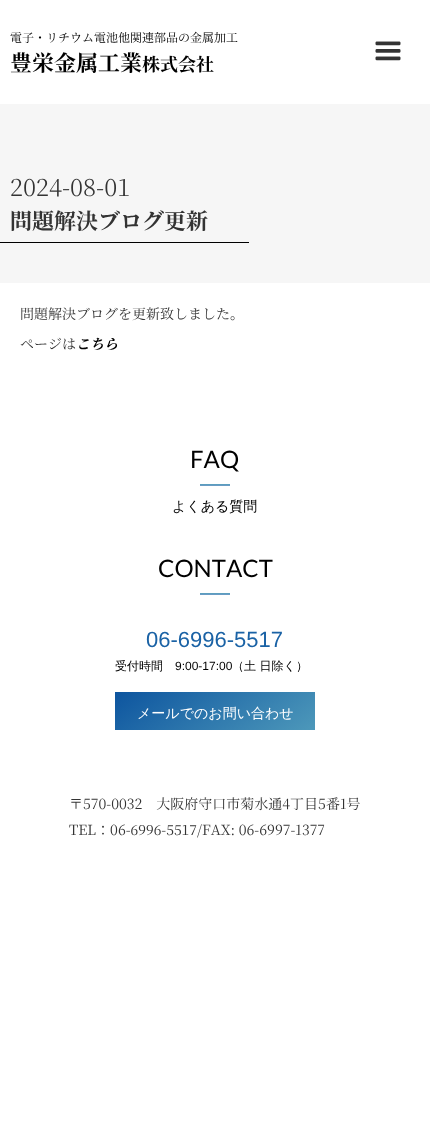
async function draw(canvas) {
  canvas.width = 430;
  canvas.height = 1147;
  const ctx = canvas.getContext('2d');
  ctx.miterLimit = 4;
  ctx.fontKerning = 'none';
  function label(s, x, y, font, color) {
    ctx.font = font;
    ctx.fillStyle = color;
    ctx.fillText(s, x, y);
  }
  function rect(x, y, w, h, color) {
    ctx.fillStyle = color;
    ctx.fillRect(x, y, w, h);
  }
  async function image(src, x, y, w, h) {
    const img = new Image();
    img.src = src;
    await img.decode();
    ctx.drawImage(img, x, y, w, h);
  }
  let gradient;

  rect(0, 0, 430, 1147, '#fff');
  label('電子・リチウム電池他関連部品の金属加工', 10, 42, '12px Noto Serif JP', '#000');
  label('豊栄金属工業', 10, 71, 'bold 22px Noto Serif JP', '#000');
  label('株式会社', 142, 71, 'bold 18px Noto Serif JP', '#000');
  await image('assets/img1.png', 375, 41, 26, 20);
  rect(0, 104, 430, 179, '#f6f6f6');
  label('2024-08-01', 10, 196, '300 24px Noto Serif JP', '#333');
  label('問題解決ブログ更新', 10, 229, 'bold 22px Noto Serif JP', '#333');
  rect(0, 242, 249, 1, '#000');
  label('問題解決ブログを更新致しました。', 20, 319, '14px Noto Serif JP', '#333');
  label('ページは', 20, 349, '14px Noto Serif JP', '#333');
  label('こちら', 76, 349, 'italic bold 14px Noto Serif JP', '#000');
  label('FAQ', 190, 468, '24px Lato', '#000');
  gradient = ctx.createLinearGradient(215, 484, 215, 486);
  gradient.addColorStop(0, '#559fbc');
  gradient.addColorStop(1, '#719bc7');
  ctx.fillStyle = gradient;
  ctx.fillRect(200, 484, 30, 2);
  label('よくある質問', 172, 511, '500 14px WenQuanYi Zen Hei', '#000');
  label('CONTACT', 158, 577, '24px Lato', '#000');
  gradient = ctx.createLinearGradient(215, 593, 215, 595);
  gradient.addColorStop(0, '#559fbc');
  gradient.addColorStop(1, '#719bc7');
  ctx.fillStyle = gradient;
  ctx.fillRect(200, 593, 30, 2);
  label('06-6996-5517', 146, 647, '22px Liberation Sans', '#1a62a5');
  label('受付時間', 115, 670, '500 12px WenQuanYi Zen Hei', '#000');
  label('9:00-17:00', 175, 670, '12px Liberation Sans', '#000');
  label('（土 日除く）', 232, 670, '500 12px WenQuanYi Zen Hei', '#000');
  gradient = ctx.createLinearGradient(171, 651, 259, 771);
  gradient.addColorStop(0, '#0d559f');
  gradient.addColorStop(1, '#4d98ba');
  ctx.fillStyle = gradient;
  ctx.fillRect(115, 692, 200, 38);
  label('メールでのお問い合わせ', 137, 718, '500 14px WenQuanYi Zen Hei', '#fff');
  label('〒570-0032　大阪府守口市菊水通4丁目5番1号', 69, 809, '14px Noto Serif JP', '#333');
  label('TEL：06-6996-5517/FAX: 06-6997-1377', 69, 835, '14px Noto Serif JP', '#333');
}

draw(document.querySelector('canvas'));
